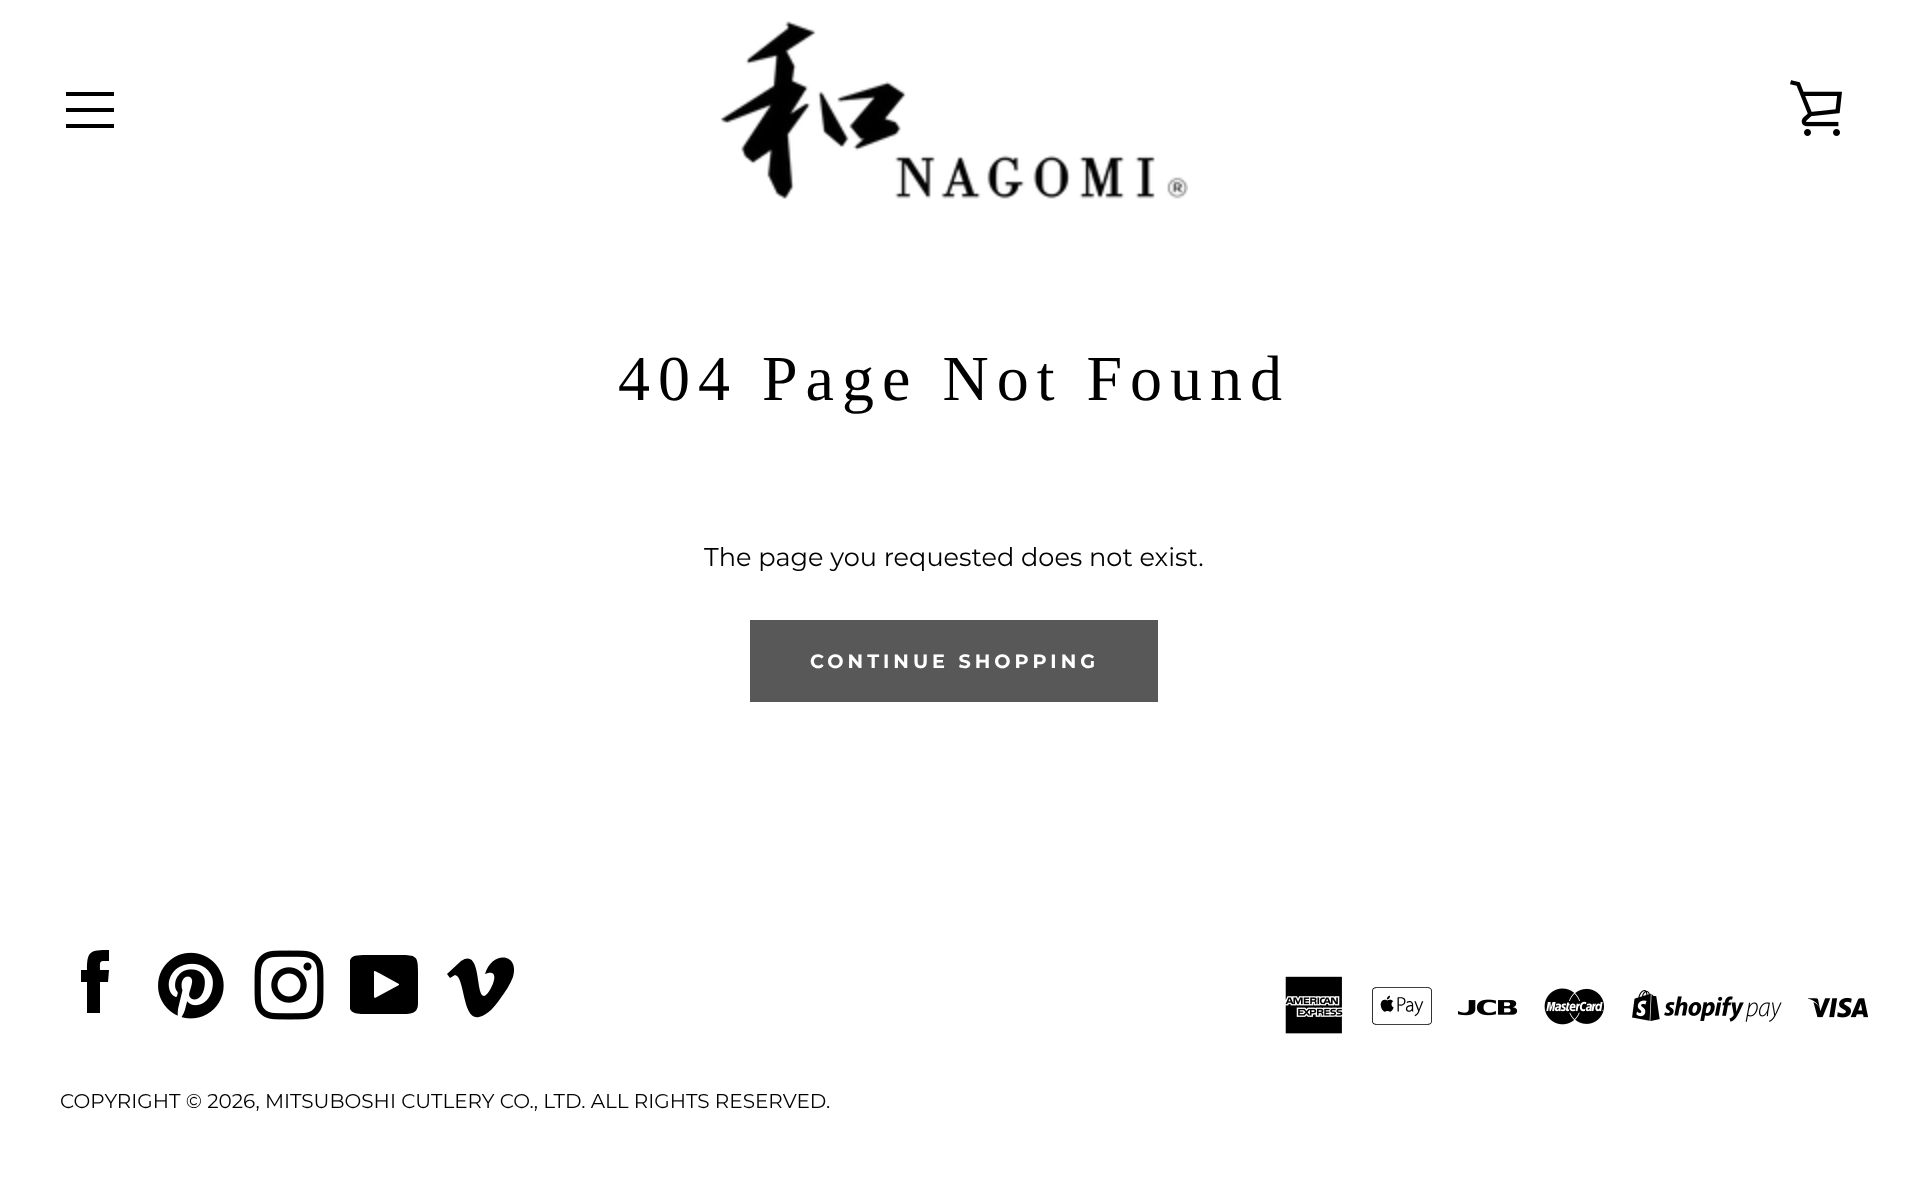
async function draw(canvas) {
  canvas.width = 1907;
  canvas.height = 1201;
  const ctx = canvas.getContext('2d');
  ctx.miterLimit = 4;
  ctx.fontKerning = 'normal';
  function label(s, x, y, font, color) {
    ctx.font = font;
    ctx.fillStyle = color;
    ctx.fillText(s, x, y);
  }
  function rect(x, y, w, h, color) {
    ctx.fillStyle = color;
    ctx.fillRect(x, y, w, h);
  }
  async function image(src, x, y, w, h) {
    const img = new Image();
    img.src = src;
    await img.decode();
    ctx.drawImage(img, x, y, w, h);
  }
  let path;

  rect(0, 0, 1907, 1201, '#fff');
  rect(66, 92, 48, 4, '#000');
  rect(66, 108, 48, 4, '#000');
  rect(66, 124, 48, 4, '#000');
  await image('assets/img1.png', 720, 21, 468, 178);
  await image('assets/img2.png', 1790, 80, 52, 56);
  ctx.letterSpacing = '8px';
  label('404 Page Not Found', 618, 400, '64px Liberation Serif', '#000');
  ctx.letterSpacing = '0px';
  label('The page you requested does not exist.', 704, 566, '25.6px Montserrat', '#000');
  rect(750, 620, 408, 82, '#585858');
  ctx.letterSpacing = '4px';
  label('CONTINUE SHOPPING', 810, 668, 'bold 19.25px Montserrat', '#fff');
  ctx.fillStyle = '#000';
  path = new Path2D('M109 970H100C100 960 99 961 109 961V950C90 950 87 951 87 970H81V982H87V1013H100V982H108Z');
  ctx.fill(path);
  await image('assets/img3.png', 158, 952, 66, 67);
  await image('assets/img4.png', 254, 950, 70, 70);
  ctx.save();
  ctx.beginPath();
  ctx.rect(350, 950, 70, 70);
  ctx.clip();
  path = new Path2D('M349 1004C349 1015 359 1014 367 1014H400C408 1014 418 1015 418 1004V971C418 956 416 955 400 955H367C351 955 349 956 349 971ZM374 997V976C374 970 373 970 379 973L399 984V985L375 998Z');
  ctx.fill(path);
  ctx.restore();
  path = new Path2D('M447 974L450 978L455 975C465 976 462 1021 479 1017C488 1015 495 1006 500 999C505 992 510 985 513 977C520 953 492 950 485 974C504 966 489 996 484 996C475 996 482 947 461 961Z');
  ctx.fill(path);
  await image('assets/img5.png', 1285, 976, 58, 58);
  await image('assets/img6.png', 1372, 987, 60, 38);
  await image('assets/img7.png', 1458, 999, 60, 17);
  await image('assets/img8.png', 1544, 988, 60, 37);
  await image('assets/img9.png', 1632, 990, 150, 32);
  await image('assets/img10.png', 1808, 997, 60, 21);
  ctx.letterSpacing = '0px';
  label('COPYRIGHT © 2026, MITSUBOSHI CUTLERY CO., LTD. ALL RIGHTS RESERVED.', 60, 1108, '20px Montserrat', '#000');
}

draw(document.querySelector('canvas'));
